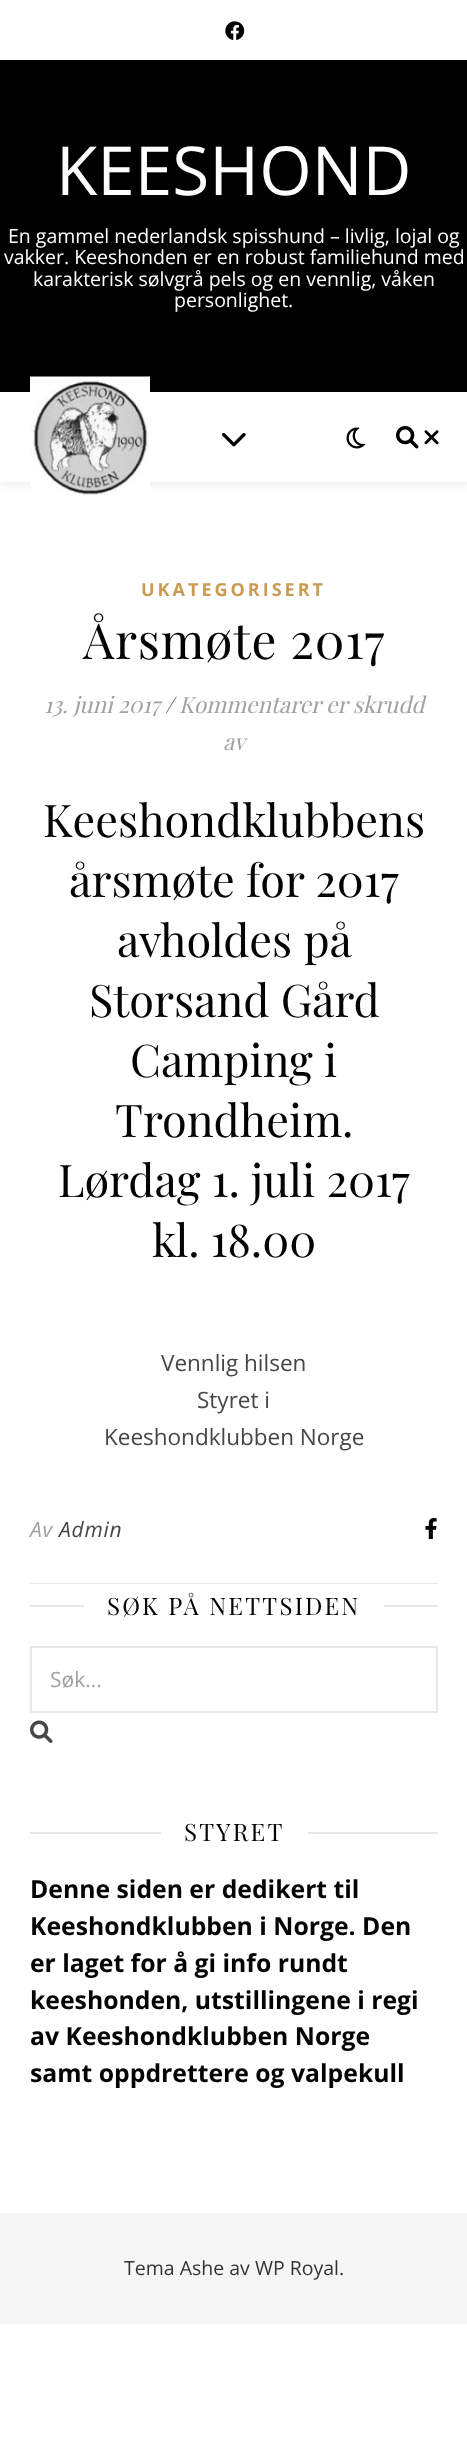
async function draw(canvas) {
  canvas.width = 467;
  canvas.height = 2463;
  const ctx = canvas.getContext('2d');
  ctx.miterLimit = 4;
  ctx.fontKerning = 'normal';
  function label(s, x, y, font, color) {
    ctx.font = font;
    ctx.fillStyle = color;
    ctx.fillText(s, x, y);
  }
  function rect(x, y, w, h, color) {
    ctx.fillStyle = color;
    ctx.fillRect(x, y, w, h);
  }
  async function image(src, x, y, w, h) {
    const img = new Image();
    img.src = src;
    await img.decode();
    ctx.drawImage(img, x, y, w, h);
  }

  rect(0, 0, 467, 2463, '#fff');
  await image('assets/img1.png', 225, 21, 20, 19);
  rect(0, 60, 467, 332, '#000');
  label('KEESHOND', 56, 195, '67.5px Open Sans', '#fff');
  label('En gammel nederlandsk spisshund – livlig, lojal og', 8, 243, '19.5px Open Sans', '#fff');
  label('vakker. Keeshonden er en robust familiehund med', 4, 264, '19.5px Open Sans', '#fff');
  label('karakterisk sølvgrå pels og en vennlig, våken', 33, 286, '19.5px Open Sans', '#fff');
  label('personlighet.', 174, 307, '19.5px Open Sans', '#fff');
  ctx.fillStyle = '#0000001a';
  ctx.filter = 'blur(4px)';
  ctx.beginPath();
  ctx.rect(0, 393, 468, 90);
  ctx.fill();
  ctx.filter = 'none';
  rect(0, 392, 467, 90, '#fff');
  await image('assets/img2.png', 30, 376, 120, 119);
  await image('assets/img3.png', 222, 433, 24, 14);
  await image('assets/img4.png', 346, 427, 20, 22);
  await image('assets/img5.png', 396, 426, 23, 23);
  await image('assets/img6.png', 424, 430, 15, 15);
  ctx.letterSpacing = '3px';
  label('UKATEGORISERT', 141, 596, 'bold 18px Open Sans', '#ca9b52');
  ctx.letterSpacing = '0.75px';
  label('Årsmøte 2017', 83, 659, '49.5px Playfair Display', '#030303');
  ctx.letterSpacing = '0px';
  label('13. juni 2017', 44, 713, 'italic 22.5px Playfair Display', '#a1a1a1');
  label('/', 165, 713, 'italic 22.5px Playfair Display', '#464646');
  label('Kommentarer er skrudd', 179, 713, 'italic 22.5px Playfair Display', '#a1a1a1');
  label('av', 223, 750, 'italic 22.5px Playfair Display', '#a1a1a1');
  label('Keeshondklubbens', 43, 837, '45px Playfair Display', '#030303');
  label('årsmøte for 2017', 69, 897, '45px Playfair Display', '#030303');
  label('avholdes på', 117, 957, '45px Playfair Display', '#030303');
  label('Storsand Gård', 89, 1017, '45px Playfair Display', '#030303');
  label('Camping i', 130, 1077, '45px Playfair Display', '#030303');
  label('Trondheim.', 115, 1137, '45px Playfair Display', '#030303');
  label('Lørdag 1. juli 2017', 58, 1197, '45px Playfair Display', '#030303');
  label('kl. 18.00', 152, 1257, '45px Playfair Display', '#030303');
  label('Vennlig hilsen', 161, 1371, '22.5px Open Sans', '#464646');
  label('Styret i', 197, 1408, '22.5px Open Sans', '#464646');
  label('Keeshondklubben Norge', 104, 1445, '22.5px Open Sans', '#464646');
  rect(30, 1583, 408, 1, '#e8e8e8');
  ctx.letterSpacing = '0.75px';
  label('Av', 30, 1537, 'italic 21px Open Sans', '#a1a1a1');
  label('Admin', 59, 1537, 'italic 21px Open Sans', '#464646');
  await image('assets/img7.png', 425, 1518, 12, 21);
  rect(30, 1605, 54, 2, '#e8e8e8');
  ctx.letterSpacing = '2.25px';
  label('SØK PÅ NETTSIDEN', 107, 1615, '24px Playfair Display', '#030303');
  rect(384, 1605, 54, 2, '#e8e8e8');
  ctx.strokeStyle = '#e8e8e8';
  ctx.lineWidth = 2;
  ctx.strokeRect(31, 1647, 406, 65);
  ctx.letterSpacing = '0px';
  label('Søk...', 50, 1687, '21px Open Sans', '#a1a1a1');
  await image('assets/img8.png', 30, 1720, 23, 23);
  rect(30, 1832, 131, 2, '#e8e8e8');
  ctx.letterSpacing = '2.25px';
  label('STYRET', 184, 1841, '24px Playfair Display', '#030303');
  rect(308, 1832, 130, 2, '#e8e8e8');
  ctx.letterSpacing = '0px';
  label('Denne siden er dedikert til', 30, 1898, 'bold 24.75px Open Sans', '#030303');
  label('Keeshondklubben i Norge. Den', 30, 1935, 'bold 24.75px Open Sans', '#030303');
  label('er laget for å gi info rundt', 30, 1972, 'bold 24.75px Open Sans', '#030303');
  label('keeshonden, utstillingene i regi', 30, 2009, 'bold 24.75px Open Sans', '#030303');
  label('av Keeshondklubben Norge', 30, 2045, 'bold 24.75px Open Sans', '#030303');
  label('samt oppdrettere og valpekull', 30, 2082, 'bold 24.75px Open Sans', '#030303');
  rect(0, 2213, 467, 111, '#f6f6f6');
  label('Tema Ashe av WP Royal.', 124, 2275, '19.5px Open Sans', '#333');
}

draw(document.querySelector('canvas'));
